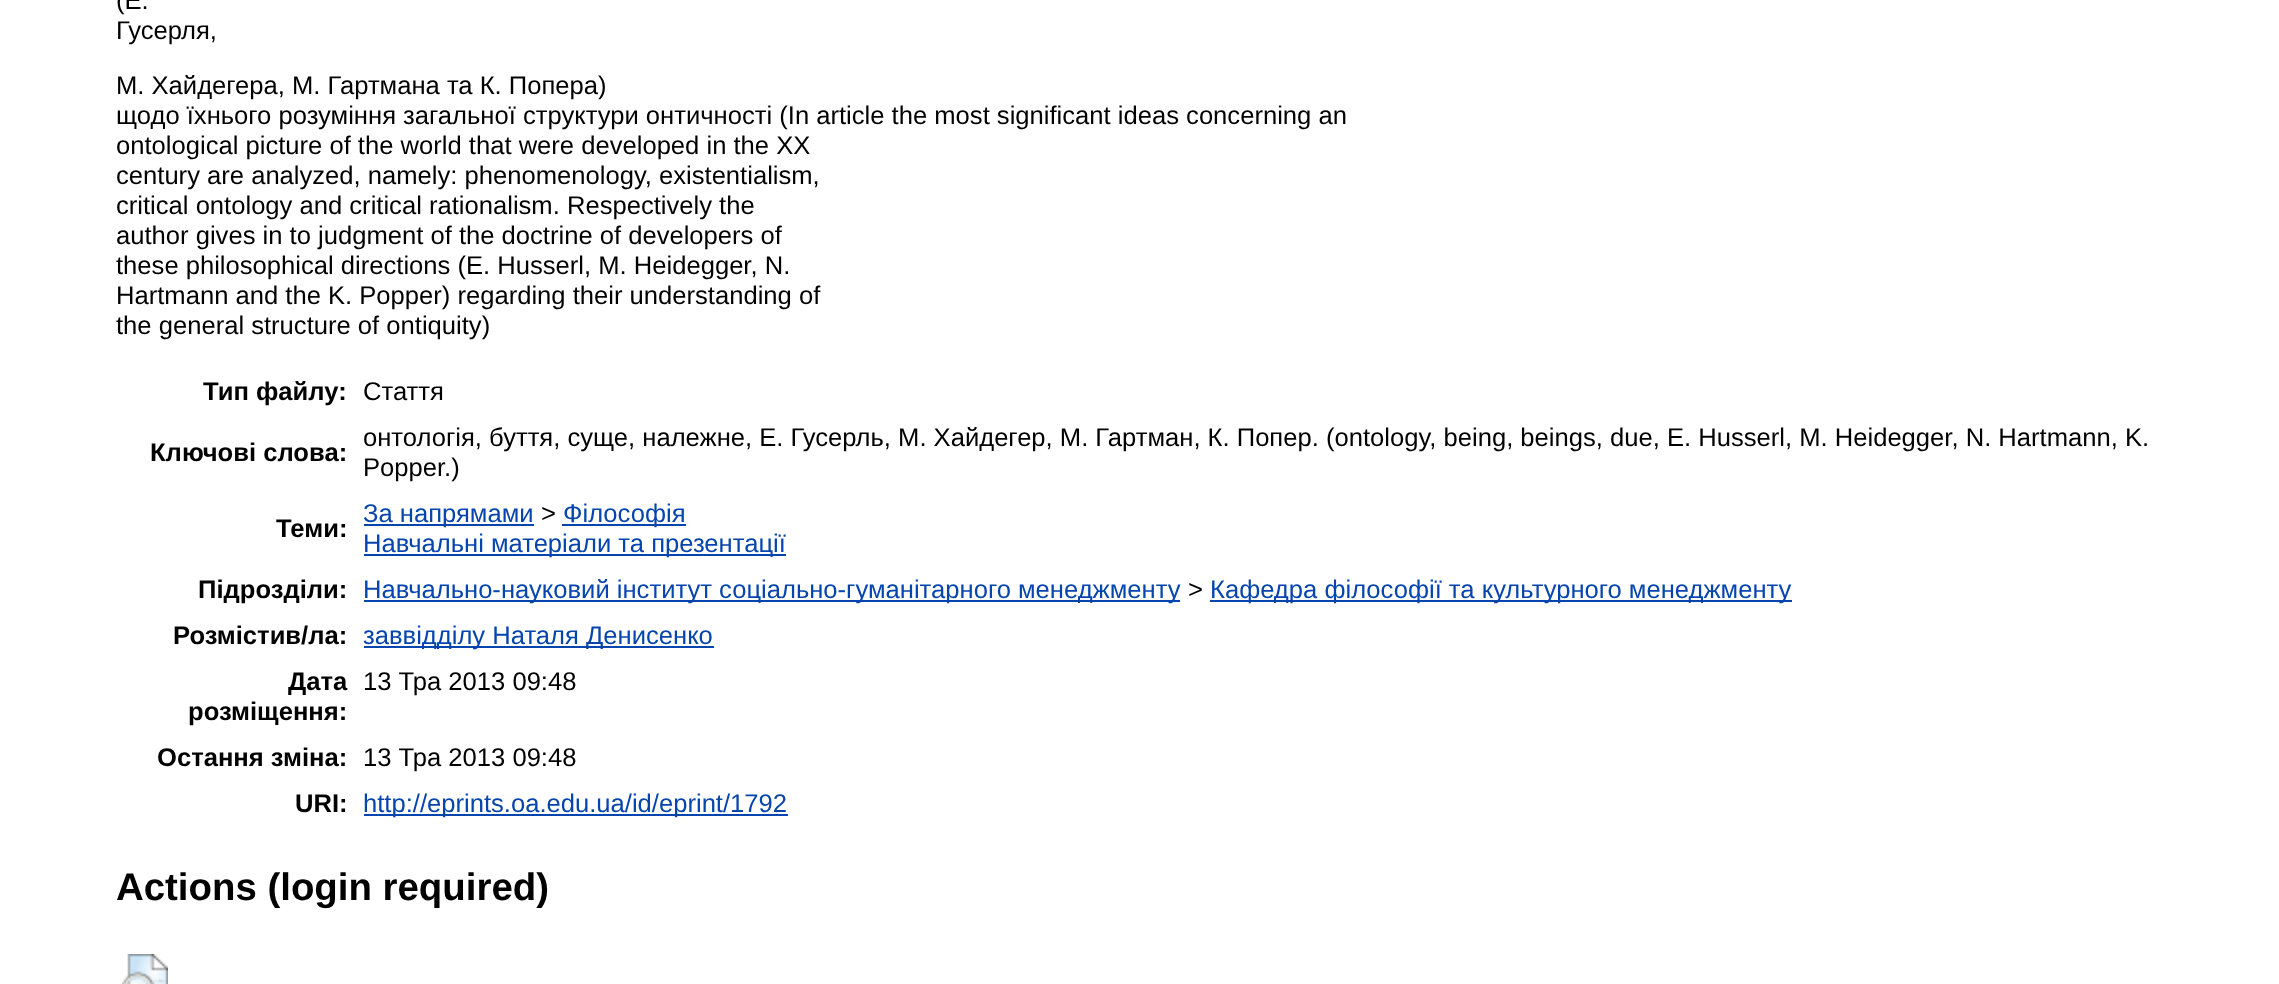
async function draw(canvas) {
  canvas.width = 2279;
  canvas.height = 984;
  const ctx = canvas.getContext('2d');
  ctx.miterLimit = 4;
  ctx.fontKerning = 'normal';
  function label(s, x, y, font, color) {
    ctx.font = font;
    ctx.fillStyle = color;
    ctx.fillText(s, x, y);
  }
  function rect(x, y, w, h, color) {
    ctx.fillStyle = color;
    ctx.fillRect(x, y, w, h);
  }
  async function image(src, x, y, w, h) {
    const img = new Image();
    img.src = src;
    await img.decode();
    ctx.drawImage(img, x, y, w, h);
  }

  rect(0, 0, 2279, 984, '#fff');
  label('(Е.', 116, 9, '25.6px Liberation Sans', '#000');
  label('Гусерля,', 116, 39, '25.6px Liberation Sans', '#000');
  label('М. Хайдегера, М. Гартмана та К. Попера)', 116, 94, '25.6px Liberation Sans', '#000');
  label('щодо їхнього розуміння загальної структури онтичності (In article the most significant ideas concerning an', 116, 124, '25.6px Liberation Sans', '#000');
  label('ontological picture of the world that were developed in the XX', 116, 154, '25.6px Liberation Sans', '#000');
  label('century are analyzed, namely: phenomenology, existentialism,', 116, 184, '25.6px Liberation Sans', '#000');
  label('critical ontology and critical rationalism. Respectively the', 116, 214, '25.6px Liberation Sans', '#000');
  label('author gives in to judgment of the doctrine of developers of', 116, 244, '25.6px Liberation Sans', '#000');
  label('these philosophical directions (E. Husserl, M. Heidegger, N.', 116, 274, '25.6px Liberation Sans', '#000');
  label('Hartmann and the K. Popper) regarding their understanding of', 116, 304, '25.6px Liberation Sans', '#000');
  label('the general structure of ontiquity)', 116, 334, '25.6px Liberation Sans', '#000');
  label('Тип файлу:', 203, 400, 'bold 25.6px Liberation Sans', '#000');
  label('Стаття', 363, 400, '25.6px Liberation Sans', '#000');
  label('Ключові слова:', 150, 461, 'bold 25.6px Liberation Sans', '#000');
  label('онтологія, буття, суще, належне, Е. Гусерль, М. Хайдегер, М. Гартман, К. Попер. (ontology, being, beings, due, E. Husserl, M. Heidegger, N. Hartmann, K.', 363, 446, '25.6px Liberation Sans', '#000');
  label('Popper.)', 363, 476, '25.6px Liberation Sans', '#000');
  label('Теми:', 276, 537, 'bold 25.6px Liberation Sans', '#000');
  rect(364, 524, 170, 2, '#0645ad');
  label('За напрямами', 363, 522, '25.6px Liberation Sans', '#0645ad');
  label('>', 541, 522, '25.6px Liberation Sans', '#000');
  rect(562, 524, 124, 2, '#0645ad');
  label('Філософія', 563, 522, '25.6px Liberation Sans', '#0645ad');
  rect(364, 554, 422, 2, '#0645ad');
  label('Навчальні матеріали та презентації', 363, 552, '25.6px Liberation Sans', '#0645ad');
  label('Підрозділи:', 198, 598, 'bold 25.6px Liberation Sans', '#000');
  rect(364, 600, 816, 2, '#0645ad');
  label('Навчально-науковий інститут соціально-гуманітарного менеджменту', 363, 598, '25.6px Liberation Sans', '#0645ad');
  label('>', 1188, 598, '25.6px Liberation Sans', '#000');
  rect(1210, 600, 582, 2, '#0645ad');
  label('Кафедра філософії та культурного менеджменту', 1210, 598, '25.6px Liberation Sans', '#0645ad');
  label('Розмістив/ла:', 173, 644, 'bold 25.6px Liberation Sans', '#000');
  rect(364, 646, 350, 2, '#0645ad');
  label('заввідділу Наталя Денисенко', 363, 644, '25.6px Liberation Sans', '#0645ad');
  label('Дата', 288, 690, 'bold 25.6px Liberation Sans', '#000');
  label('розміщення:', 188, 720, 'bold 25.6px Liberation Sans', '#000');
  label('13 Тра 2013 09:48', 363, 690, '25.6px Liberation Sans', '#000');
  label('Остання зміна:', 157, 766, 'bold 25.6px Liberation Sans', '#000');
  label('13 Тра 2013 09:48', 363, 766, '25.6px Liberation Sans', '#000');
  label('URI:', 295, 812, 'bold 25.6px Liberation Sans', '#000');
  rect(364, 814, 424, 2, '#0645ad');
  label('http://eprints.oa.edu.ua/id/eprint/1792', 363, 812, '25.6px Liberation Sans', '#0645ad');
  label('Actions (login required)', 116, 900, 'bold 38.4px Liberation Sans', '#000');
  await image('assets/img1.png', 122, 954, 46, 30);
}

draw(document.querySelector('canvas'));
